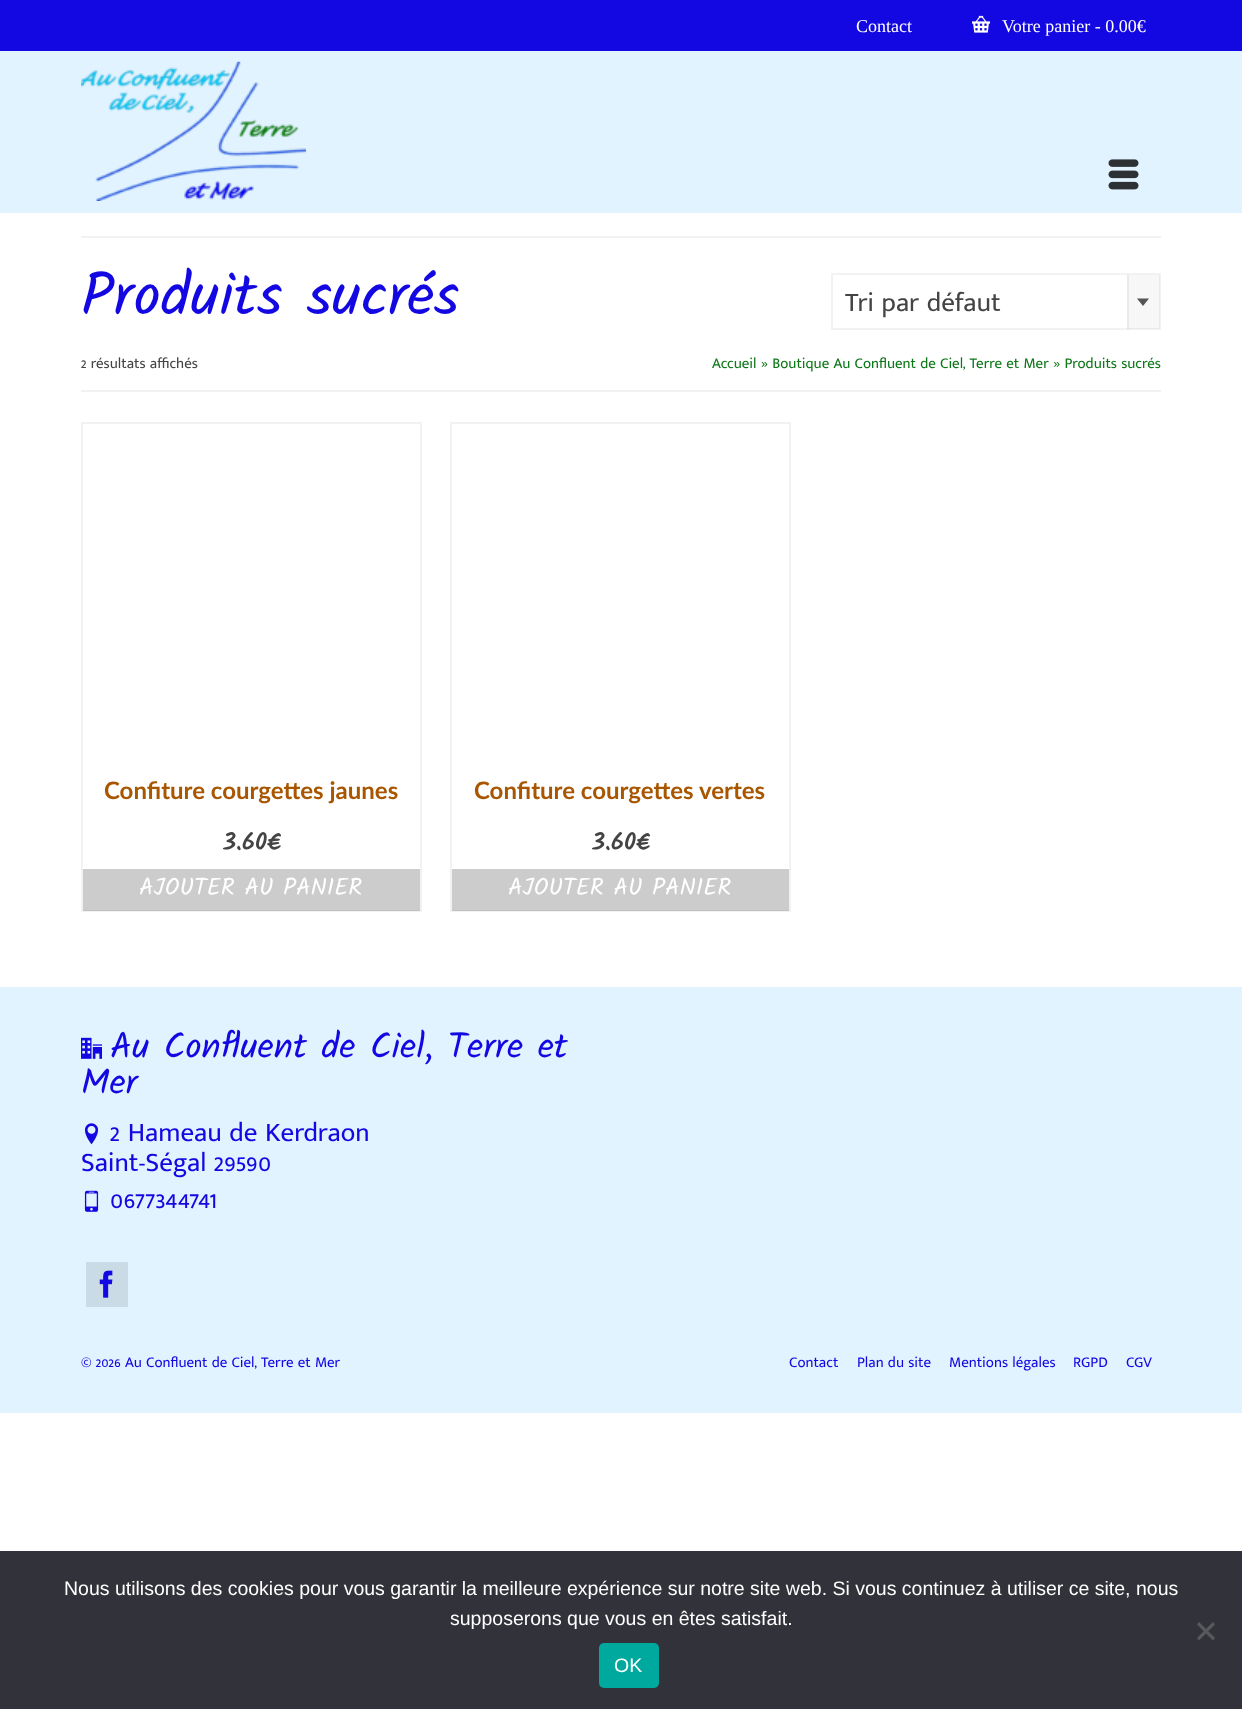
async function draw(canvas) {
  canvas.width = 1242;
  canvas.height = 1709;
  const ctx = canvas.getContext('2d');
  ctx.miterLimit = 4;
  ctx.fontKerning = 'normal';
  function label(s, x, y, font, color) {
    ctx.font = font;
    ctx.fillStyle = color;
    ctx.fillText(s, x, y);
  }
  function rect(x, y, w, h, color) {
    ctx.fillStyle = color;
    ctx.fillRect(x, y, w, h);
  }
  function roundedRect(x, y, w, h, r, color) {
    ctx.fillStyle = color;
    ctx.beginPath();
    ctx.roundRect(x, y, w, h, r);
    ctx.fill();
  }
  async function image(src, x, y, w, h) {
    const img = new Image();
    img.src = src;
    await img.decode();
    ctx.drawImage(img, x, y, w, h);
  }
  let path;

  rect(0, 0, 1242, 1709, '#fff');
  rect(0, 51, 1242, 162, '#e0f3ff');
  rect(0, 0, 1242, 51, '#1308e2');
  label('Contact', 856, 32, '18px Liberation Serif', '#fff');
  await image('assets/img1.png', 972, 15, 18, 18);
  label('Votre panier - 0.00€', 1002, 32, '18px Liberation Serif', '#fff');
  await image('assets/img2.png', 81, 61, 225, 140);
  await image('assets/img3.png', 1108, 159, 31, 31);
  rect(81, 236, 1080, 2, '#f2f2f2');
  rect(81, 390, 1080, 2, '#f2f2f2');
  label('Produits sucrés', 81, 315, '60px Kalam', '#1308e2');
  label('2 résultats affichés', 81, 368, '15px Mukta Malar', '#444');
  ctx.strokeStyle = '#f2f2f2';
  ctx.lineWidth = 2;
  ctx.strokeRect(832, 274, 328, 55);
  label('Tri par défaut', 845, 311, '27px Mukta Malar', '#444');
  rect(1127, 275, 33, 54, '#00000008');
  rect(1127, 275, 2, 54, '#0000000d');
  ctx.fillStyle = '#555';
  path = new Path2D('M1137 298.5H1149L1143 306Z');
  ctx.fill(path);
  label('Accueil » Boutique Au Confluent de Ciel, Terre et Mer » Produits sucrés', 712, 368, '15px Mukta Malar', '#0e7819');
  ctx.strokeRect(82, 423, 339, 488);
  label('Confiture courgettes jaunes', 104, 799, 'bold 24px Lato', '#a85700');
  label('3.60€', 222, 850, 'bold 24px Kalam', '#444');
  rect(83, 869, 337, 42, '#00000033');
  label('AJOUTER AU PANIER', 139, 895, '24px Kalam', '#fff');
  ctx.strokeRect(451, 423, 339, 488);
  label('Confiture courgettes vertes', 474, 799, 'bold 24px Lato', '#a85700');
  label('3.60€', 591, 850, 'bold 24px Kalam', '#444');
  rect(452, 869, 337, 42, '#00000033');
  label('AJOUTER AU PANIER', 508, 895, '24px Kalam', '#fff');
  rect(0, 987, 1242, 426, '#e0f3ff');
  await image('assets/img4.png', 81, 1037, 21, 22);
  label('Au Confluent de Ciel, Terre et', 110, 1058, '36px Kalam', '#1308e2');
  label('Mer', 81, 1094, '36px Kalam', '#1308e2');
  await image('assets/img5.png', 84, 1123, 15, 22);
  label('2 Hameau de Kerdraon', 110, 1141, '27px Mukta Malar', '#1308e2');
  label('Saint-Ségal 29590', 81, 1171, '27px Mukta Malar', '#1308e2');
  await image('assets/img6.png', 84, 1190, 15, 22);
  label('0677344741', 110, 1208, '27px Mukta Malar', '#1308e2');
  rect(86, 1262, 42, 45, '#cadbe6');
  await image('assets/img7.png', 99, 1270, 14, 28);
  label('© 2026 Au Confluent de Ciel, Terre et Mer', 81, 1367, '15px Mukta Malar', '#1308e2');
  label('Contact', 789, 1367, '15px Mukta Malar', '#1308e2');
  label('Plan du site', 857, 1367, '15px Mukta Malar', '#1308e2');
  label('Mentions légales', 949, 1367, '15px Mukta Malar', '#1308e2');
  label('RGPD', 1073, 1367, '15px Mukta Malar', '#1308e2');
  label('CGV', 1126, 1367, '15px Mukta Malar', '#1308e2');
  rect(0, 1551, 1242, 158, '#32323a');
  label('Nous utilisons des cookies pour vous garantir la meilleure expérience sur notre site web. Si vous continuez à utiliser ce site, nous', 64, 1595, '19.5px Liberation Sans', '#fff');
  label('supposerons que vous en êtes satisfait.', 450, 1625, '19.5px Liberation Sans', '#fff');
  ctx.fillStyle = '#59595d';
  path = new Path2D('M1213 1622L1215 1624.5L1199 1640.5L1197 1638Z');
  ctx.fill(path);
  path = new Path2D('M1197 1624.5L1199 1622L1215 1638L1213 1640.5Z');
  ctx.fill(path);
  roundedRect(599, 1643, 60, 45, 5, '#00a99d');
  label('OK', 614, 1672, '19.5px Liberation Sans', '#fff');
}

draw(document.querySelector('canvas'));
